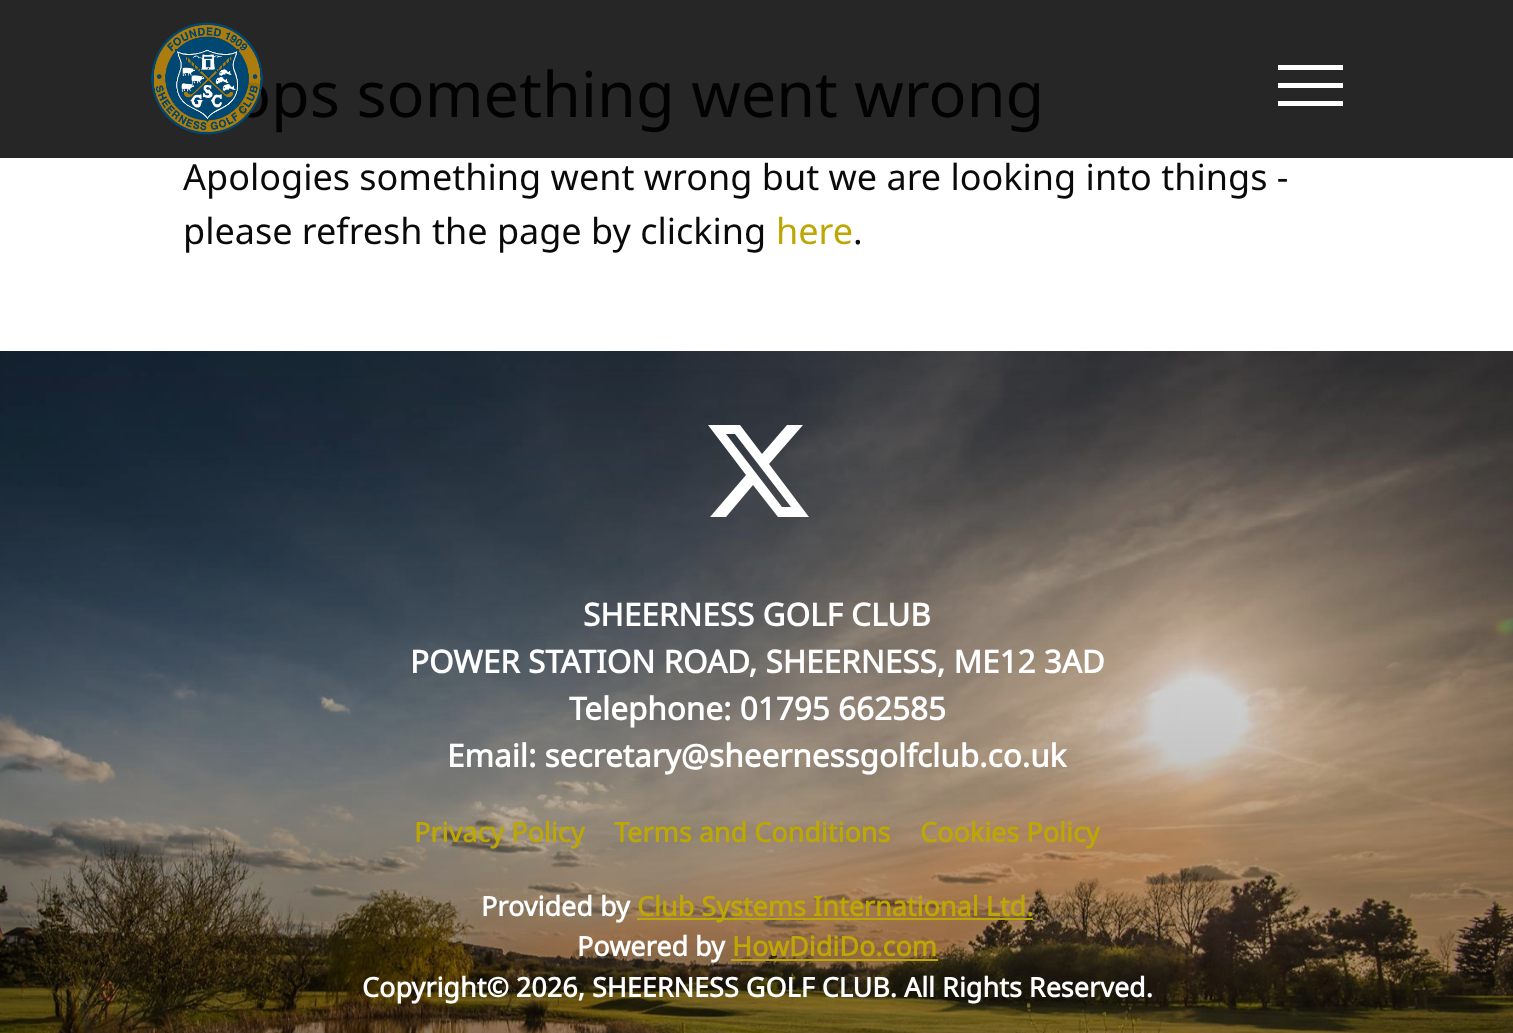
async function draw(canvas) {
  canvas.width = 1513;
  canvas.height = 1033;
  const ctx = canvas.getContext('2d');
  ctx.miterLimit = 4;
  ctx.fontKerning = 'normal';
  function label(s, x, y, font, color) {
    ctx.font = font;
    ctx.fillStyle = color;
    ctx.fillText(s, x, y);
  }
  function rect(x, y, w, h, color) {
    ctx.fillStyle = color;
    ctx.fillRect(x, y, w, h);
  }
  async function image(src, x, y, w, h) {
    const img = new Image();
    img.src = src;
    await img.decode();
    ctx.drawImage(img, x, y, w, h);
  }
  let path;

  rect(0, 0, 1513, 1033, '#fff');
  rect(0, 0, 1513, 158, '#262626');
  label('ops something went wrong', 233, 117, '63px Noto Sans', '#020202');
  await image('assets/img1.png', 151, 22, 112, 113);
  rect(1278, 65, 65, 5, '#fff');
  rect(1278, 83, 65, 5, '#fff');
  rect(1278, 101, 65, 5, '#fff');
  label('Apologies something went wrong but we are looking into things -', 183, 190, '36px Noto Sans', '#0a0a0b');
  label('please refresh the page by clicking', 183, 244, '36px Noto Sans', '#0a0a0b');
  label('here', 776, 244, '36px Noto Sans', '#bda704');
  label('.', 853, 244, '36px Noto Sans', '#0a0a0b');
  await image('assets/img2.png', 0, 351, 1513, 682);
  ctx.fillStyle = '#fff';
  path = new Path2D('M787 425H803L769 464L809 517H778L753 485L726 517H710L746 475L708 425H740L762 454ZM782 507H791L735 434H726Z');
  ctx.fill(path);
  label('SHEERNESS GOLF CLUB', 583, 626, 'bold 31.5px Noto Sans', '#fff');
  label('POWER STATION ROAD, SHEERNESS, ME12 3AD', 410, 673, 'bold 31.5px Noto Sans', '#fff');
  label('Telephone: 01795 662585', 569, 720, 'bold 31.5px Noto Sans', '#fff');
  label('Email: secretary@sheernessgolfclub.co.uk', 447, 767, 'bold 31.5px Noto Sans', '#fff');
  label('Privacy Policy', 414, 842, 'bold 27px Noto Sans', '#bda704');
  label('Terms and Conditions', 614, 842, 'bold 27px Noto Sans', '#bda704');
  label('Cookies Policy', 920, 842, 'bold 27px Noto Sans', '#bda704');
  label('Provided by', 481, 916, 'bold 27px Noto Sans', '#fff');
  rect(637, 918, 396, 2, '#bda704');
  label('Club Systems International Ltd.', 637, 916, 'bold 27px Noto Sans', '#bda704');
  label('Powered by', 577, 956, 'bold 27px Noto Sans', '#fff');
  label('HowDidiDo.com', 732, 956, 'bold 27px Noto Sans', '#bda704');
  rect(731, 959, 207, 2, '#bda704');
  label('Copyright© 2026, SHEERNESS GOLF CLUB. All Rights Reserved.', 362, 997, 'bold 27px Noto Sans', '#fff');
}

draw(document.querySelector('canvas'));
